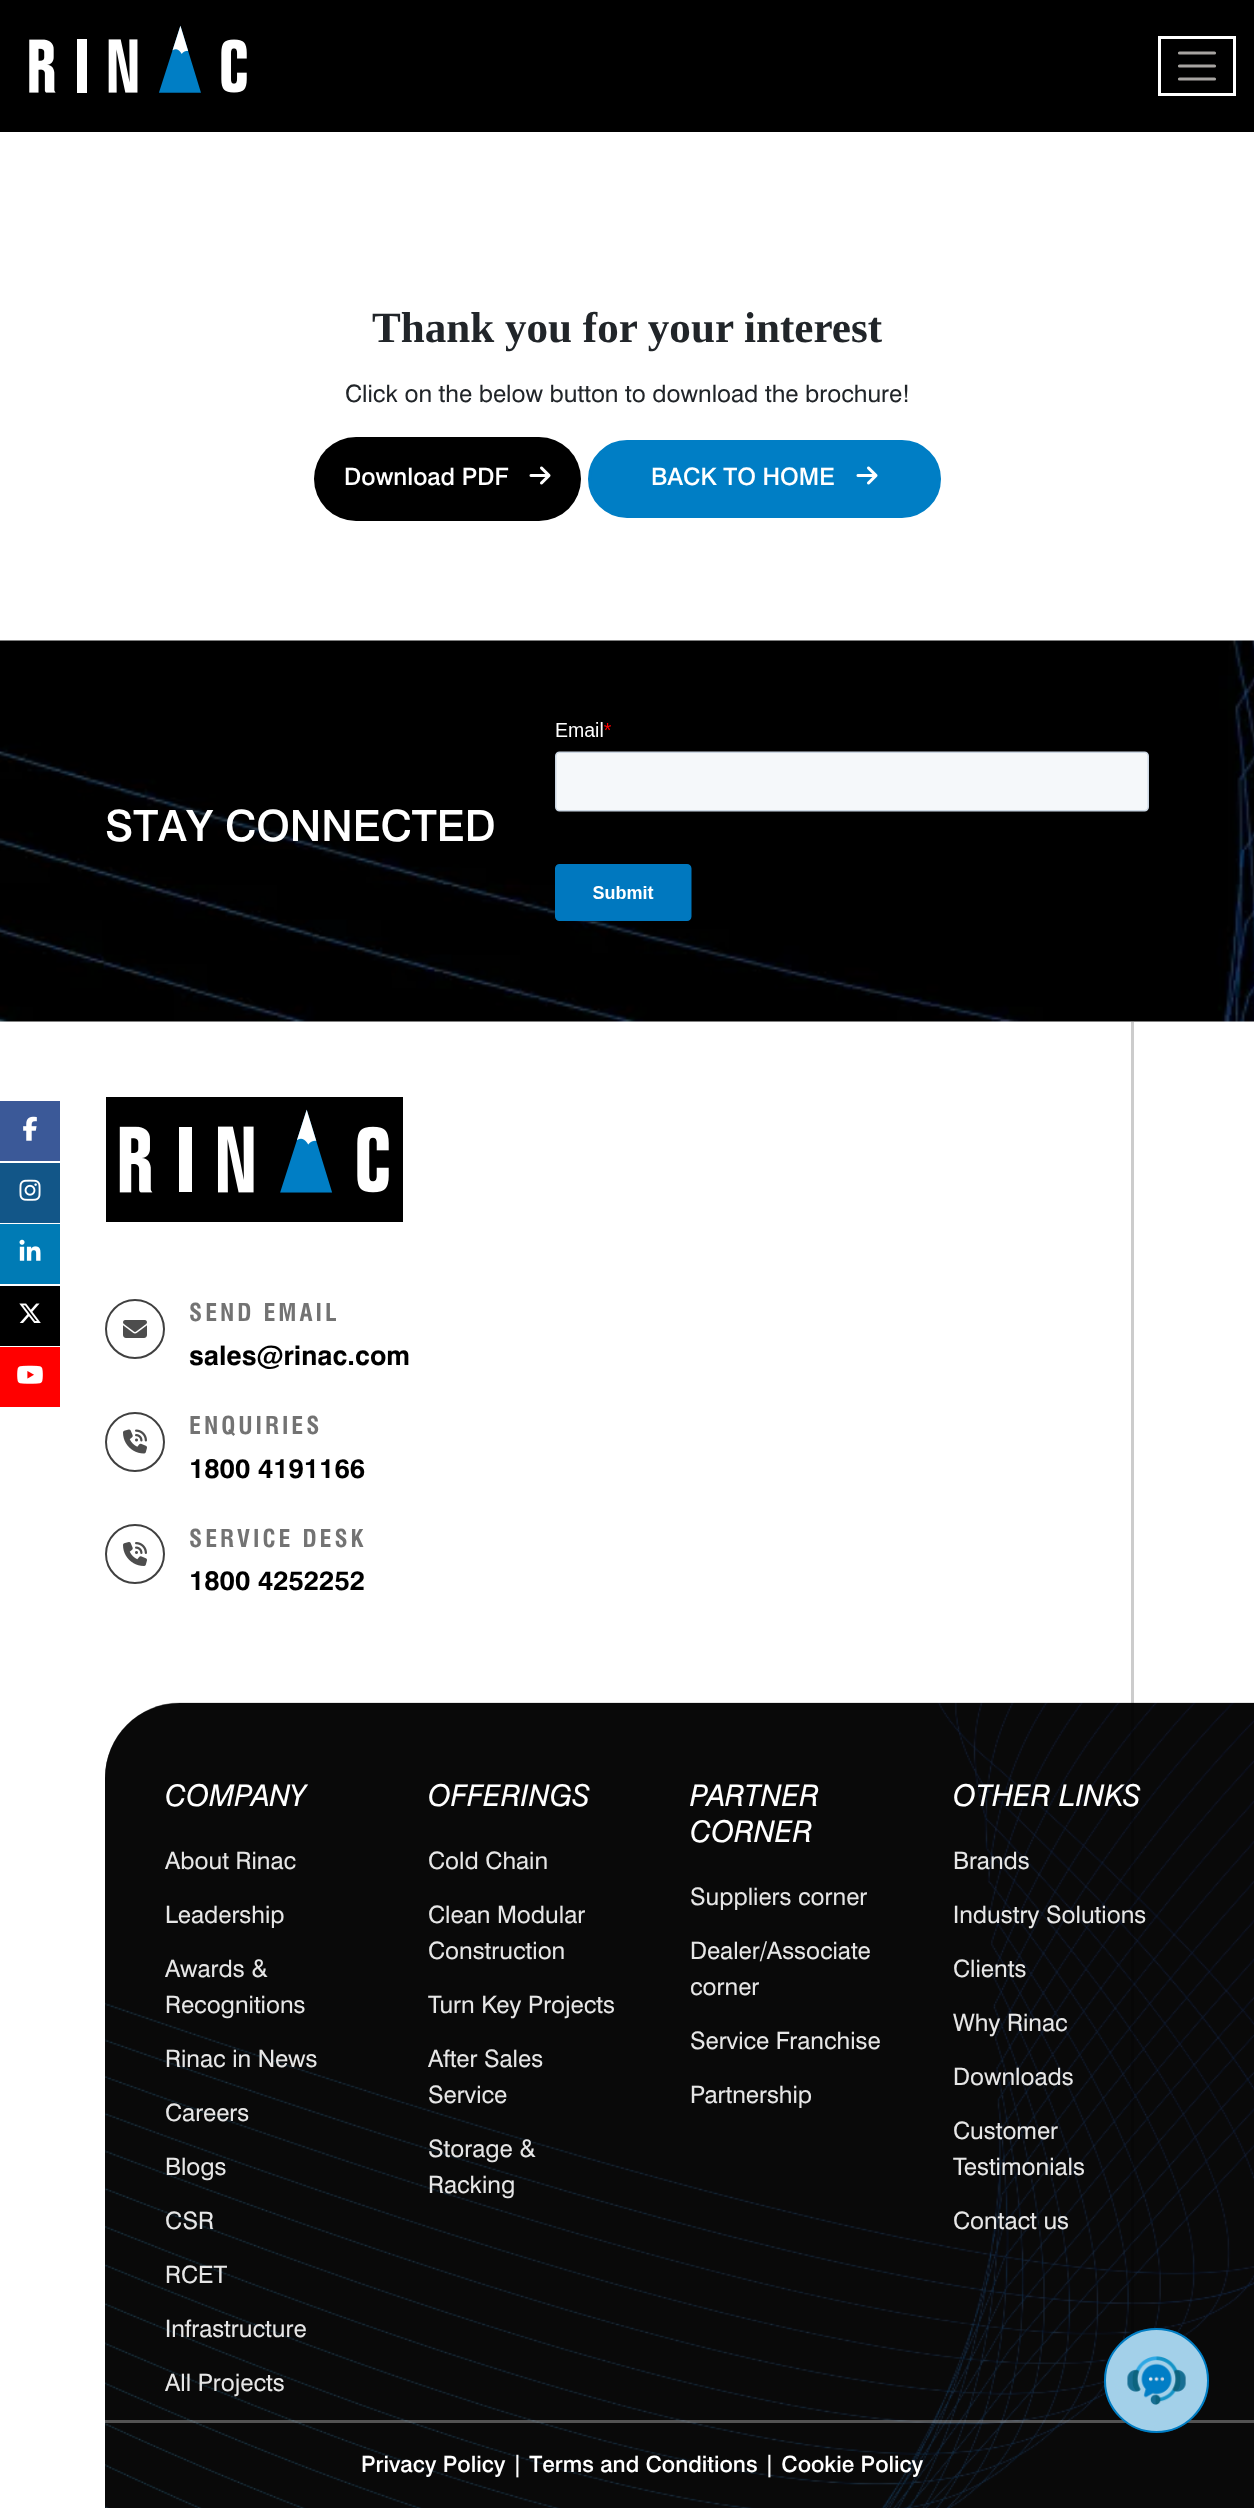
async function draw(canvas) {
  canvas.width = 1254;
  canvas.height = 2508;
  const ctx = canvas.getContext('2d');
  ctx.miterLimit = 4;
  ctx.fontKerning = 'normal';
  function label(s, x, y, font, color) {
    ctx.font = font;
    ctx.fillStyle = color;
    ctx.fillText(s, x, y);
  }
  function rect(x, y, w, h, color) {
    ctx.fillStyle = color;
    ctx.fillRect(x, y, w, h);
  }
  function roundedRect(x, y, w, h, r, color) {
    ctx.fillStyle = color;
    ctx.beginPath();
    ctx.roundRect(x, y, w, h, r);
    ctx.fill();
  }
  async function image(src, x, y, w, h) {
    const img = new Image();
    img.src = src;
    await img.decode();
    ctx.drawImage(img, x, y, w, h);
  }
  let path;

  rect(0, 0, 1254, 2508, '#fff');
  rect(0, 0, 1254, 132, '#000');
  await image('assets/img1.png', 29, 25, 218, 68);
  ctx.beginPath();
  ctx.rect(1159.5, 37.5, 75, 57);
  ctx.strokeStyle = '#fff';
  ctx.lineWidth = 3;
  ctx.stroke();
  path = new Path2D('M1179.5 53H1214.5M1179.5 66H1214.5M1179.5 79H1214.5');
  ctx.strokeStyle = '#a7a4a1';
  ctx.lineWidth = 3.2;
  ctx.lineCap = 'round';
  ctx.stroke(path);
  label('Thank you for your interest', 372, 342, 'bold 43.1px Liberation Serif', '#212529');
  label('Click on the below button to download the brochure!', 345, 402, '24px "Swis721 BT"', '#212529');
  roundedRect(314, 437, 267, 84, 42, '#000');
  label('Download PDF', 344, 485, '500 24px "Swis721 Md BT"', '#fff');
  await image('assets/img2.png', 529, 466, 22, 19);
  ctx.fillStyle = '#007ec5';
  ctx.beginPath();
  ctx.roundRect(589.5, 441.5, 350, 75, 37.5);
  ctx.fill();
  ctx.strokeStyle = '#007ec5';
  ctx.lineWidth = 3;
  ctx.stroke();
  label('BACK TO HOME', 651, 485, '500 24px "Swis721 Md BT"', '#fff');
  await image('assets/img3.png', 856, 466, 22, 19);
  await image('assets/img4.png', 0, 640, 1254, 382);
  label('STAY CONNECTED', 105, 841, '500 43.1px "Swis721 Md BT"', '#fff');
  await image('assets/img5.png', 555, 722, 594, 199);
  rect(0, 1101, 60, 60, '#3b5998');
  await image('assets/img6.png', 23, 1116, 14, 25);
  rect(0, 1163, 60, 60, '#125688');
  await image('assets/img7.png', 19, 1179, 22, 22);
  rect(0, 1224, 60, 60, '#007bb5');
  await image('assets/img8.png', 19, 1239, 22, 22);
  rect(0, 1286, 60, 60, '#000');
  await image('assets/img9.png', 19, 1303, 22, 20);
  rect(0, 1347, 60, 60, '#f00');
  await image('assets/img10.png', 17, 1365, 26, 19);
  await image('assets/img11.png', 106, 1097, 297, 125);
  ctx.fillStyle = '#111';
  path = new Path2D('M180 1703H1254V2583H105V1778C105 1736.5 138.5 1703 180 1703Z');
  ctx.fill(path);
  await image('assets/img15.png', 105, 1702, 1149, 806);
  rect(1131, 1022, 3, 1352, '#00000033');
  ctx.beginPath();
  ctx.arc(135, 1329, 29, 0, 2 * Math.PI);
  ctx.strokeStyle = '#404040';
  ctx.lineWidth = 2;
  ctx.stroke();
  await image('assets/img12.png', 123, 1320, 24, 18);
  ctx.letterSpacing = '3px';
  label('SEND EMAIL', 189, 1321, 'bold 24px "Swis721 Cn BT"', '#737373');
  ctx.letterSpacing = '0px';
  label('sales@rinac.com', 189, 1365, 'bold 27px "Swis721 BT"', '#000');
  ctx.beginPath();
  ctx.arc(135, 1442, 29, 0, 2 * Math.PI);
  ctx.stroke();
  await image('assets/img13.png', 123, 1429, 24, 25);
  ctx.letterSpacing = '3px';
  label('ENQUIRIES', 189, 1434, 'bold 24px "Swis721 Cn BT"', '#737373');
  ctx.letterSpacing = '0px';
  label('1800 4191166', 189, 1478, 'bold 27px "Swis721 BT"', '#000');
  ctx.beginPath();
  ctx.arc(135, 1554, 29, 0, 2 * Math.PI);
  ctx.stroke();
  await image('assets/img14.png', 123, 1542, 24, 24);
  ctx.letterSpacing = '3px';
  label('SERVICE DESK', 189, 1547, 'bold 24px "Swis721 Cn BT"', '#737373');
  ctx.letterSpacing = '0px';
  label('1800 4252252', 189, 1590, 'bold 27px "Swis721 BT"', '#000');
  label('COMPANY', 165, 1806, 'italic 30px "Swis721 BT"', '#fff');
  label('About Rinac', 165, 1869, '24px "Swis721 BT"', '#e6e6e6');
  label('Leadership', 165, 1923, '24px "Swis721 BT"', '#e6e6e6');
  label('Awards &', 165, 1977, '24px "Swis721 BT"', '#e6e6e6');
  label('Recognitions', 165, 2013, '24px "Swis721 BT"', '#e6e6e6');
  label('Rinac in News', 165, 2067, '24px "Swis721 BT"', '#e6e6e6');
  label('Careers', 165, 2121, '24px "Swis721 BT"', '#e6e6e6');
  label('Blogs', 165, 2175, '24px "Swis721 BT"', '#e6e6e6');
  label('CSR', 165, 2229, '24px "Swis721 BT"', '#e6e6e6');
  label('RCET', 165, 2283, '24px "Swis721 BT"', '#e6e6e6');
  label('Infrastructure', 165, 2337, '24px "Swis721 BT"', '#e6e6e6');
  label('All Projects', 165, 2391, '24px "Swis721 BT"', '#e6e6e6');
  label('OFFERINGS', 428, 1806, 'italic 30px "Swis721 BT"', '#fff');
  label('Cold Chain', 428, 1869, '24px "Swis721 BT"', '#e6e6e6');
  label('Clean Modular', 428, 1923, '24px "Swis721 BT"', '#e6e6e6');
  label('Construction', 428, 1959, '24px "Swis721 BT"', '#e6e6e6');
  label('Turn Key Projects', 428, 2013, '24px "Swis721 BT"', '#e6e6e6');
  label('After Sales', 428, 2067, '24px "Swis721 BT"', '#e6e6e6');
  label('Service', 428, 2103, '24px "Swis721 BT"', '#e6e6e6');
  label('Storage &', 428, 2157, '24px "Swis721 BT"', '#e6e6e6');
  label('Racking', 428, 2193, '24px "Swis721 BT"', '#e6e6e6');
  label('PARTNER', 690, 1806, 'italic 30px "Swis721 BT"', '#fff');
  label('CORNER', 690, 1842, 'italic 30px "Swis721 BT"', '#fff');
  label('Suppliers corner', 690, 1905, '24px "Swis721 BT"', '#e6e6e6');
  label('Dealer/Associate', 690, 1959, '24px "Swis721 BT"', '#e6e6e6');
  label('corner', 690, 1995, '24px "Swis721 BT"', '#e6e6e6');
  label('Service Franchise', 690, 2049, '24px "Swis721 BT"', '#e6e6e6');
  label('Partnership', 690, 2103, '24px "Swis721 BT"', '#e6e6e6');
  label('OTHER LINKS', 953, 1806, 'italic 30px "Swis721 BT"', '#fff');
  label('Brands', 953, 1869, '24px "Swis721 BT"', '#e6e6e6');
  label('Industry Solutions', 953, 1923, '24px "Swis721 BT"', '#e6e6e6');
  label('Clients', 953, 1977, '24px "Swis721 BT"', '#e6e6e6');
  label('Why Rinac', 953, 2031, '24px "Swis721 BT"', '#e6e6e6');
  label('Downloads', 953, 2085, '24px "Swis721 BT"', '#e6e6e6');
  label('Customer', 953, 2139, '24px "Swis721 BT"', '#e6e6e6');
  label('Testimonials', 953, 2175, '24px "Swis721 BT"', '#e6e6e6');
  label('Contact us', 953, 2229, '24px "Swis721 BT"', '#e6e6e6');
  rect(105, 2420, 1149, 3, '#ffffff4d');
  label('Privacy Policy | Terms and Conditions | Cookie Policy', 361, 2472, '500 22.5px "Swis721 Md BT"', '#fff');
  ctx.beginPath();
  ctx.arc(1156.5, 2380.5, 51.5, 0, 2 * Math.PI);
  ctx.fill();
  ctx.strokeStyle = '#007ec5';
  ctx.stroke();
  ctx.fillStyle = '#007ec533';
  ctx.beginPath();
  ctx.arc(1156.5, 2380.5, 52.5, 0, 2 * Math.PI);
  ctx.fill();
  ctx.beginPath();
  ctx.arc(1156.5, 2380.5, 52.5, 0, 2 * Math.PI);
  ctx.fill();
  await image('assets/img16.png', 1127, 2356, 59, 49);
}

draw(document.querySelector('canvas'));
